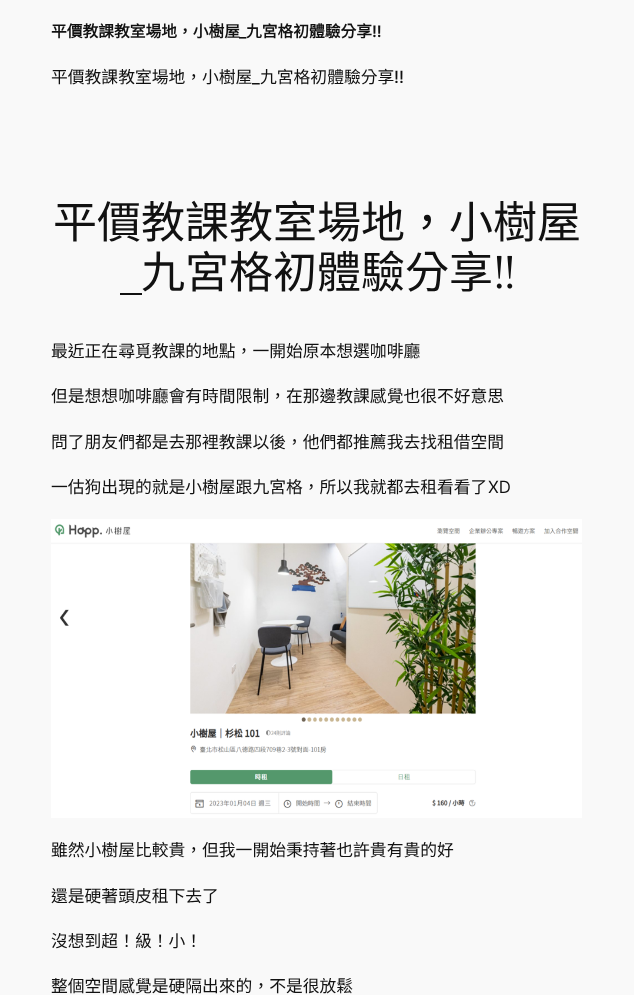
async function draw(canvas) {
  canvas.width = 634;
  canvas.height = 995;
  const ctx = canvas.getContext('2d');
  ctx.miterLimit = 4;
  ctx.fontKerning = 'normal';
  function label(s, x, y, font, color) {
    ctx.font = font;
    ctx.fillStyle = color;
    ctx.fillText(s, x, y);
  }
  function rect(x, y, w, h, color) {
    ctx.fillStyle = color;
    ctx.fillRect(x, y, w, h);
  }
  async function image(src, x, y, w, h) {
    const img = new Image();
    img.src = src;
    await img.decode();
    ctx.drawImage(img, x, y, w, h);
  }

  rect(0, 0, 634, 995, '#f9f9f9');
  label('平價教課教室場地，小樹屋', 51, 37, 'bold 15.75px Noto Sans CJK TC', '#111');
  label('_', 239, 37, '600 15.75px Inter', '#111');
  label('九宮格初體驗分享', 246, 37, 'bold 15.75px Noto Sans CJK TC', '#111');
  label('!!', 372, 37, '600 15.75px Inter', '#111');
  label('平價教課教室場地，小樹屋', 51, 83, '16.8px Noto Sans CJK TC', '#111');
  label('_', 252, 83, '500 16.8px Inter', '#111');
  label('九宮格初體驗分享', 260, 83, '16.8px Noto Sans CJK TC', '#111');
  label('!!', 394, 83, '500 16.8px Inter', '#111');
  label('平價教課教室場地，小樹屋', 53, 238, '44px Noto Sans CJK TC', '#111');
  label('九宮格初體驗分享', 141, 288, '44px Noto Sans CJK TC', '#111');
  rect(120, 293, 22, 2, '#111');
  await image('assets/img1.png', 496, 255, 17, 34);
  label('最近正在尋覓教課的地點，一開始原本想選咖啡廳', 51, 357, '16.8px Noto Sans CJK TC', '#111');
  label('但是想想咖啡廳會有時間限制，在那邊教課感覺也很不好意思', 51, 402, '16.8px Noto Sans CJK TC', '#111');
  label('問了朋友們都是去那裡教課以後，他們都推薦我去找租借空間', 51, 448, '16.8px Noto Sans CJK TC', '#111');
  label('一估狗出現的就是小樹屋跟九宮格，所以我就都去租看看了', 51, 493, '16.8px Noto Sans CJK TC', '#111');
  label('XD', 488, 493, '16.8px Inter', '#111');
  await image('assets/img2.png', 51, 519, 531, 299);
  label('雖然小樹屋比較貴，但我一開始秉持著也許貴有貴的好', 51, 856, '16.8px Noto Sans CJK TC', '#111');
  label('還是硬著頭皮租下去了', 51, 902, '16.8px Noto Sans CJK TC', '#111');
  label('沒想到超！級！小！', 51, 947, '16.8px Noto Sans CJK TC', '#111');
  label('整個空間感覺是硬隔出來的，不是很放鬆', 51, 992, '16.8px Noto Sans CJK TC', '#111');
}

draw(document.querySelector('canvas'));
